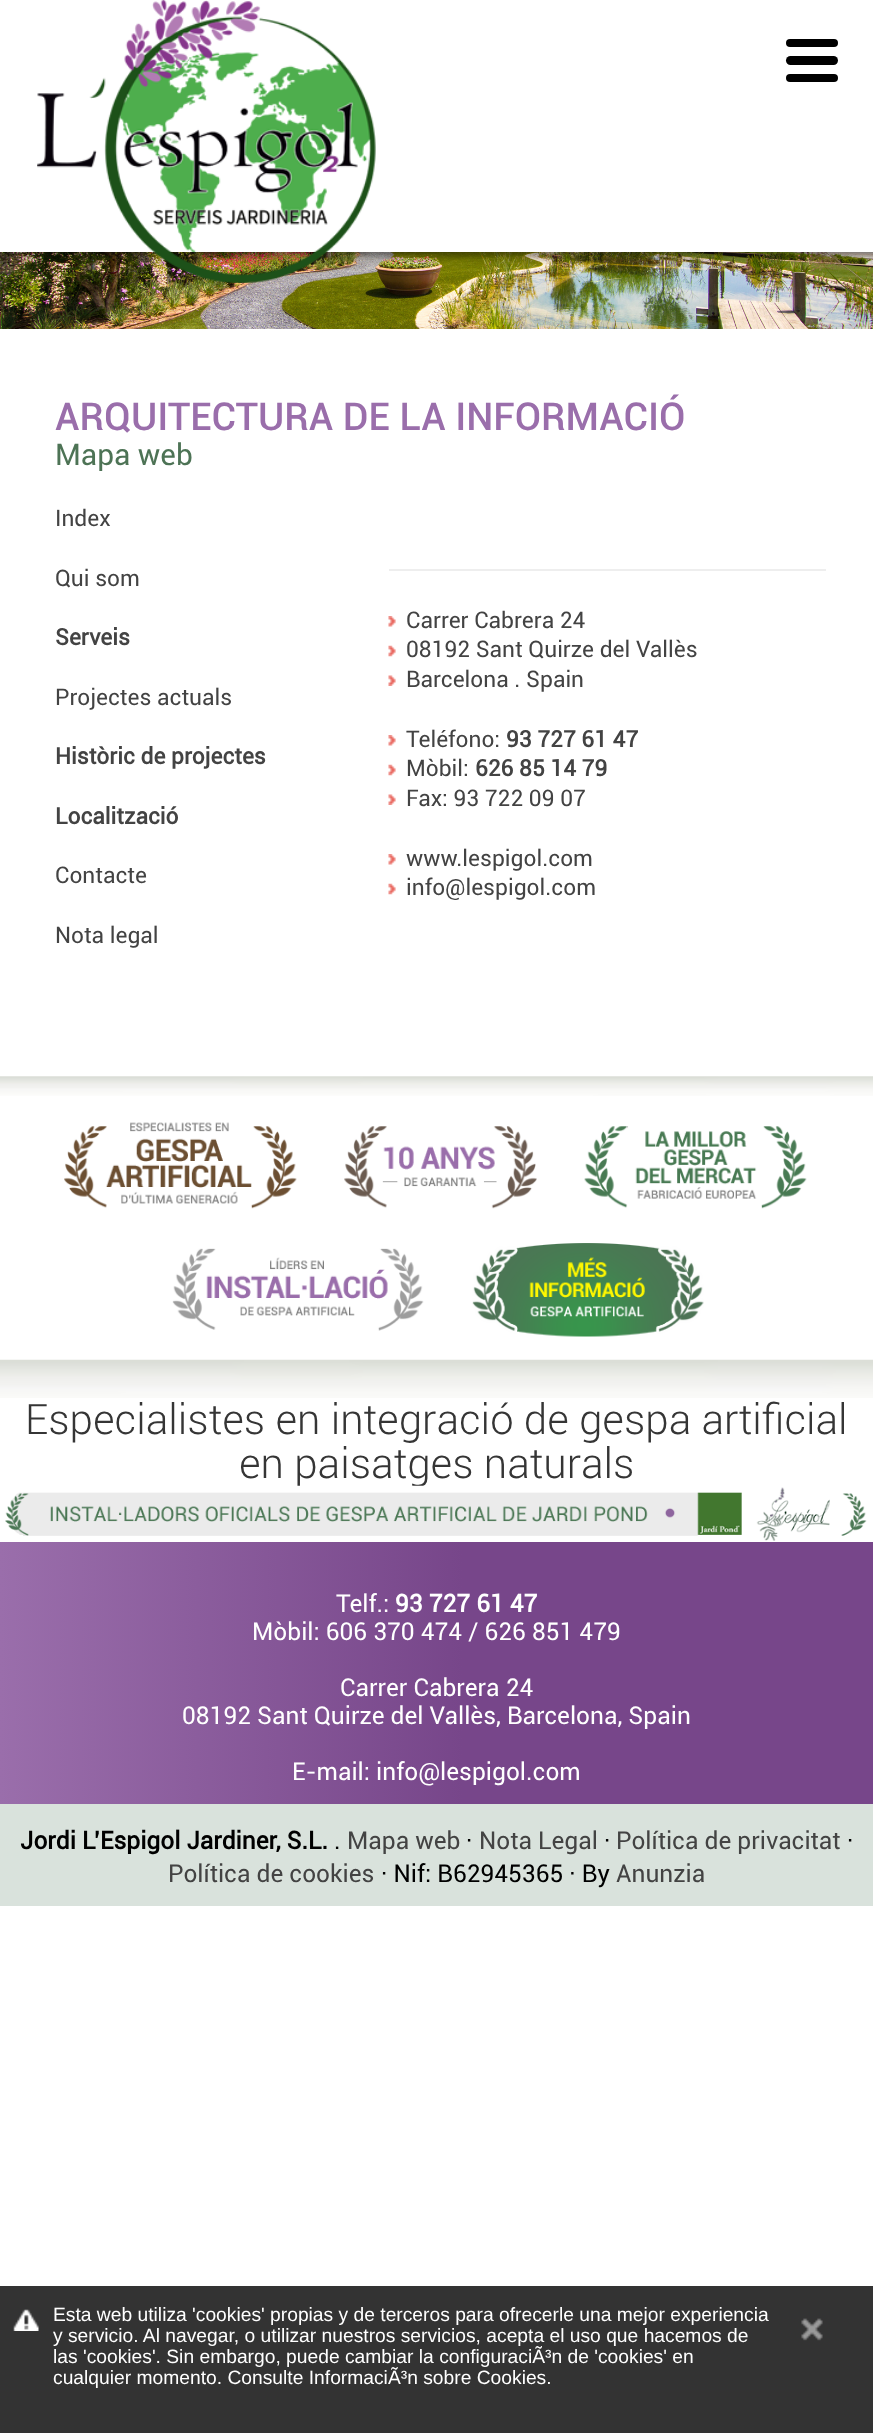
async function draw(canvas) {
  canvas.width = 873;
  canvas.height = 2433;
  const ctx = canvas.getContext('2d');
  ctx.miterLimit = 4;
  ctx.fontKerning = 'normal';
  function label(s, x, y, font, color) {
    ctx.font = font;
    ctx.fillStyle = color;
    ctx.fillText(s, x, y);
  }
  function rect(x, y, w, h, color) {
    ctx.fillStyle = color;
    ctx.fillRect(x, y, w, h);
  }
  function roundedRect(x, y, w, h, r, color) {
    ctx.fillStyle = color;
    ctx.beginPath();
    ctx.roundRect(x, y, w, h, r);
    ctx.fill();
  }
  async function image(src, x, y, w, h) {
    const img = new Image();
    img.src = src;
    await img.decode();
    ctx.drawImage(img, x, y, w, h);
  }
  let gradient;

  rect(0, 0, 873, 2433, '#fff');
  await image('assets/img2.png', 0, 252, 873, 77);
  await image('assets/img1.png', 37, 0, 339, 283);
  roundedRect(786, 39, 52, 8, 4, '#000');
  roundedRect(786, 56, 52, 9, 4.5, '#000');
  roundedRect(786, 74, 52, 8, 4, '#000');
  label('ARQUITECTURA DE LA INFORMACIÓ', 55, 430, '500 38.5px Roboto', '#9a6eab');
  label('Mapa web', 55, 465, '29.75px Roboto', '#4d7355');
  label('Index', 55, 526, '22.75px Roboto', '#434343');
  label('Qui som', 55, 586, '22.75px Roboto', '#434343');
  label('Serveis', 55, 645, 'bold 22.75px Roboto', '#434343');
  label('Projectes actuals', 55, 705, '22.75px Roboto', '#434343');
  label('Històric de projectes', 55, 764, 'bold 22.75px Roboto', '#434343');
  label('Localització', 55, 824, 'bold 22.75px Roboto', '#434343');
  label('Contacte', 55, 883, '22.75px Roboto', '#434343');
  label('Nota legal', 55, 943, '22.75px Roboto', '#434343');
  rect(389, 569, 437, 2, '#eee');
  await image('assets/img3.png', 388, 616, 8, 11);
  label('Carrer Cabrera 24', 406, 628, '22.75px Roboto', '#434343');
  await image('assets/img4.png', 388, 645, 8, 12);
  label('08192 Sant Quirze del Vallès', 406, 657, '22.75px Roboto', '#434343');
  await image('assets/img5.png', 388, 675, 8, 11);
  label('Barcelona . Spain', 406, 687, '22.75px Roboto', '#434343');
  await image('assets/img3.png', 388, 735, 8, 11);
  label('Teléfono:', 406, 747, '22.75px Roboto', '#434343');
  label('93 727 61 47', 506, 747, 'bold 22.75px Roboto', '#434343');
  await image('assets/img4.png', 388, 764, 8, 12);
  label('Mòbil:', 406, 776, '22.75px Roboto', '#434343');
  label('626 85 14 79', 475, 776, 'bold 22.75px Roboto', '#434343');
  await image('assets/img5.png', 388, 794, 8, 11);
  label('Fax: 93 722 09 07', 406, 806, '22.75px Roboto', '#434343');
  await image('assets/img3.png', 388, 854, 8, 11);
  label('www.lespigol.com', 406, 866, '22.75px Roboto', '#434343');
  await image('assets/img4.png', 388, 883, 8, 12);
  label('info@lespigol.com', 406, 895, '22.75px Roboto', '#434343');
  await image('assets/img6.png', 0, 1076, 873, 20);
  await image('assets/img7.png', 64, 1122, 233, 87);
  await image('assets/img8.png', 344, 1126, 193, 83);
  await image('assets/img9.png', 584, 1126, 223, 83);
  await image('assets/img10.png', 172, 1248, 252, 83);
  await image('assets/img11.png', 472, 1243, 232, 94);
  await image('assets/img12.png', 0, 1359, 873, 39);
  label('Especialistes en integració de gespa artificial', 25, 1434, '300 42px Roboto', '#353535');
  label('en paisatges naturals', 239, 1478, '300 42px Roboto', '#353535');
  await image('assets/img13.png', 5, 1485, 862, 56);
  gradient = ctx.createLinearGradient(0, 1673, 873, 1673);
  gradient.addColorStop(0, '#9a6eab');
  gradient.addColorStop(0.53, '#77468a');
  gradient.addColorStop(1, '#77468a');
  ctx.fillStyle = gradient;
  ctx.fillRect(0, 1542, 873, 262);
  label('Telf.:', 336, 1612, '24.5px Roboto', '#fff');
  label('93 727 61 47', 395, 1612, 'bold 24.5px Roboto', '#fff');
  label('Mòbil: 606 370 474 / 626 851 479', 252, 1640, '24.5px Roboto', '#fff');
  label('Carrer Cabrera 24', 340, 1696, '24.5px Roboto', '#fff');
  label('08192 Sant Quirze del Vallès, Barcelona, Spain', 182, 1724, '24.5px Roboto', '#fff');
  label('E-mail: info@lespigol.com', 292, 1780, '24.5px Roboto', '#fff');
  rect(0, 1804, 873, 102, '#d9e2dc');
  label('Jordi L’Espigol Jardiner, S.L.', 20, 1849, 'bold 24.5px Roboto', '#000');
  label('Mapa web', 347, 1849, '24.5px Roboto', '#434343');
  label('·', 466, 1849, '24.5px Roboto', '#000');
  label('Nota Legal', 479, 1849, '24.5px Roboto', '#434343');
  label('·', 604, 1849, '24.5px Roboto', '#000');
  label('Política de privacitat', 616, 1849, '24.5px Roboto', '#434343');
  label('·', 847, 1849, '24.5px Roboto', '#000');
  label('.', 334, 1849, '24.5px Roboto', '#000');
  label('Política de cookies', 168, 1882, '24.5px Roboto', '#434343');
  label('· Nif: B62945365 · By', 381, 1882, '24.5px Roboto', '#000');
  label('Anunzia', 616, 1882, '24.5px Roboto', '#434343');
  rect(0, 2286, 873, 147, '#333');
  await image('assets/img14.png', 13, 2309, 26, 22);
  label('Esta web utiliza \'cookies\' propias y de terceros para ofrecerle una mejor experiencia', 53, 2321, '19.25px Liberation Sans', '#fff');
  label('y servicio. Al navegar, o utilizar nuestros servicios, acepta el uso que hacemos de', 53, 2342, '19.25px Liberation Sans', '#fff');
  await image('assets/img15.png', 801, 2318, 22, 23);
  label('las \'cookies\'. Sin embargo, puede cambiar la configuraciÃ³n de \'cookies\' en', 53, 2363, '19.25px Liberation Sans', '#fff');
  label('cualquier momento. Consulte InformaciÃ³n sobre Cookies.', 53, 2384, '19.25px Liberation Sans', '#fff');
}

draw(document.querySelector('canvas'));
